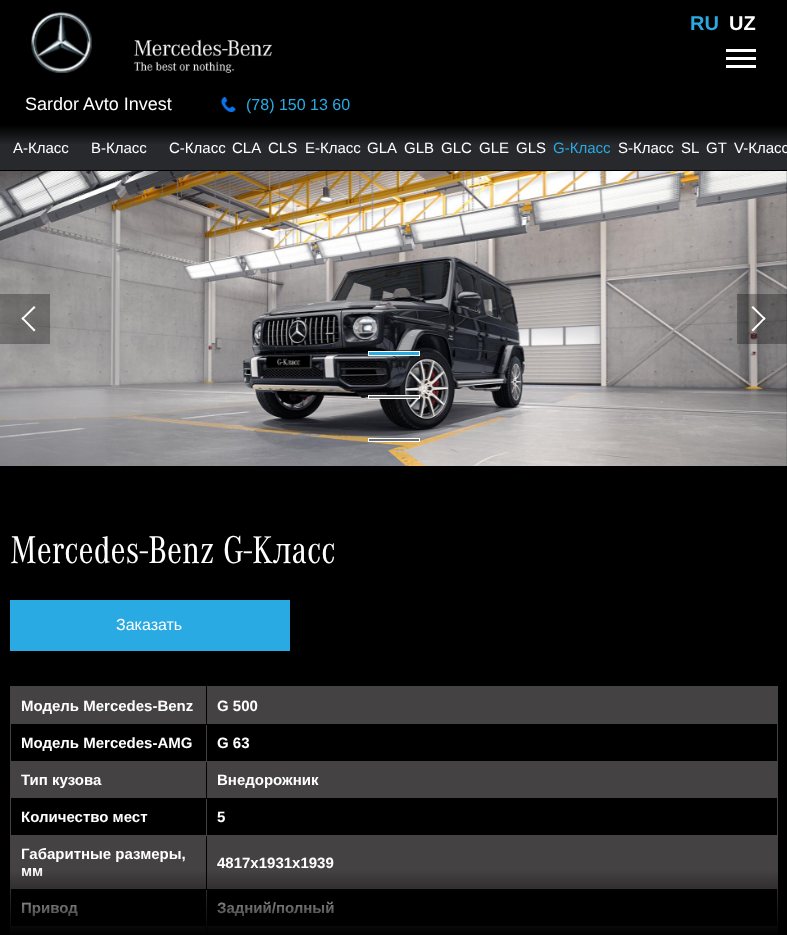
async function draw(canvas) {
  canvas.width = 787;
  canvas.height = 935;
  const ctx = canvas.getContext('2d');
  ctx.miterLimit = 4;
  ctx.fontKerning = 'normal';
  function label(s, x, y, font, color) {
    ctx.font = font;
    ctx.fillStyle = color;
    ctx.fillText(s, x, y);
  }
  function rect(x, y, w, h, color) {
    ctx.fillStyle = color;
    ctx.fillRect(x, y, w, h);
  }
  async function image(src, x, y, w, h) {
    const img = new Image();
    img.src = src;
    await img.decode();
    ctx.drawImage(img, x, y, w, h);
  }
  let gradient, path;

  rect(0, 0, 787, 935, '#000');
  await image('assets/img1.png', 31, 12, 241, 61);
  label('RU', 690, 30, 'bold 20px Liberation Sans', '#29aae2');
  label('UZ', 729, 30, 'bold 20px Liberation Sans', '#fff');
  rect(726, 49, 30, 3, '#fff');
  rect(726, 57, 30, 3, '#fff');
  rect(726, 65, 30, 3, '#fff');
  rect(0, 145, 787, 25, '#27292d');
  label('Sardor Avto Invest', 25, 110, '18px Liberation Sans', '#fff');
  await image('assets/img2.png', 221, 97, 15, 15);
  label('(78) 150 13 60', 246, 110, '16px Liberation Sans', '#29aae2');
  gradient = ctx.createLinearGradient(394, 125, 394, 145);
  gradient.addColorStop(0, '#000');
  gradient.addColorStop(1, '#27292d');
  ctx.fillStyle = gradient;
  ctx.fillRect(0, 126, 787, 19);
  label('А-Класс', 13, 153, '15px Liberation Sans', '#fff');
  label('B-Класс', 91, 153, '15px Liberation Sans', '#fff');
  label('C-Класс', 169, 153, '15px Liberation Sans', '#fff');
  label('CLA', 232, 153, '15px Liberation Sans', '#fff');
  label('CLS', 268, 153, '15px Liberation Sans', '#fff');
  label('E-Класс', 305, 153, '15px Liberation Sans', '#fff');
  label('GLA', 367, 153, '15px Liberation Sans', '#fff');
  label('GLB', 404, 153, '15px Liberation Sans', '#fff');
  label('GLC', 441, 153, '15px Liberation Sans', '#fff');
  label('GLE', 479, 153, '15px Liberation Sans', '#fff');
  label('GLS', 516, 153, '15px Liberation Sans', '#fff');
  label('G-Класс', 553, 153, '15px Liberation Sans', '#29aae2');
  label('S-Класс', 618, 153, '15px Liberation Sans', '#fff');
  label('SL', 681, 153, '15px Liberation Sans', '#fff');
  label('GT', 706, 153, '15px Liberation Sans', '#fff');
  label('V-Класс', 734, 153, '15px Liberation Sans', '#fff');
  await image('assets/img3.png', 0, 171, 787, 295);
  rect(0, 294, 50, 50, '#0000004d');
  ctx.fillStyle = '#fff';
  path = new Path2D('M21.5 318.5L34 306L35.5 307.5L22.5 320Z');
  ctx.fill(path);
  path = new Path2D('M21.5 318.5L22.5 317L35.5 330L34 331.5Z');
  ctx.fill(path);
  rect(737, 294, 50, 50, '#0000004d');
  ctx.fillStyle = '#fff';
  path = new Path2D('M765.5 318.5L753 331.5L751.5 330L764.5 317Z');
  ctx.fill(path);
  path = new Path2D('M765.5 318.5L764.5 320L751.5 307.5L753 306Z');
  ctx.fill(path);
  ctx.strokeStyle = '#fff';
  ctx.strokeRect(368.5, 351.5, 51, 4);
  rect(369, 352, 50, 3, '#29aae2');
  ctx.strokeRect(368.5, 395.5, 51, 3);
  rect(369, 396, 50, 2, '#6b6b6b');
  ctx.strokeRect(368.5, 438.5, 51, 3);
  rect(369, 439, 50, 2, '#6b6b6b');
  label('Mercedes-Benz G-Класс', 10, 563, '40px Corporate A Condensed', '#fff');
  rect(10, 600, 280, 51, '#29aae2');
  label('Заказать', 116, 630, '16px Liberation Sans', '#fff');
  rect(10, 686, 768, 1, '#444242');
  rect(777, 686, 1, 249, '#444242');
  rect(10, 686, 1, 249, '#444242');
  rect(11, 687, 766, 37, '#444242');
  rect(11, 761, 766, 37, '#444242');
  rect(11, 835, 766, 54, '#444242');
  rect(11, 926, 766, 9, '#444242');
  rect(206, 926, 1, 9, '#000');
  rect(206, 889, 1, 38, '#444242');
  rect(206, 835, 1, 55, '#000');
  rect(206, 798, 1, 38, '#444242');
  rect(206, 761, 1, 38, '#000');
  rect(206, 724, 1, 38, '#444242');
  rect(206, 686, 1, 39, '#000');
  label('Модель Mercedes-Benz', 21, 711, 'bold 15px Liberation Sans', '#fff');
  label('G 500', 217, 711, 'bold 15px Liberation Sans', '#fff');
  label('Модель Mercedes-AMG', 21, 748, 'bold 15px Liberation Sans', '#fff');
  label('G 63', 217, 748, 'bold 15px Liberation Sans', '#fff');
  label('Тип кузова', 21, 785, 'bold 15px Liberation Sans', '#fff');
  label('Внедорожник', 217, 785, 'bold 15px Liberation Sans', '#fff');
  label('Количество мест', 21, 822, 'bold 15px Liberation Sans', '#fff');
  label('5', 217, 822, 'bold 15px Liberation Sans', '#fff');
  label('Габаритные размеры,', 21, 859, 'bold 15px Liberation Sans', '#fff');
  label('мм', 21, 876, 'bold 15px Liberation Sans', '#fff');
  label('4817x1931x1939', 217, 868, 'bold 15px Liberation Sans', '#fff');
  label('Привод', 21, 913, 'bold 15px Liberation Sans', '#fff');
  label('Задний/полный', 217, 913, 'bold 15px Liberation Sans', '#fff');
  gradient = ctx.createLinearGradient(394, 935, 394, 870);
  gradient.addColorStop(0, '#000');
  gradient.addColorStop(1, '#00000000');
  ctx.fillStyle = gradient;
  ctx.fillRect(10, 871, 768, 64);
}

draw(document.querySelector('canvas'));
